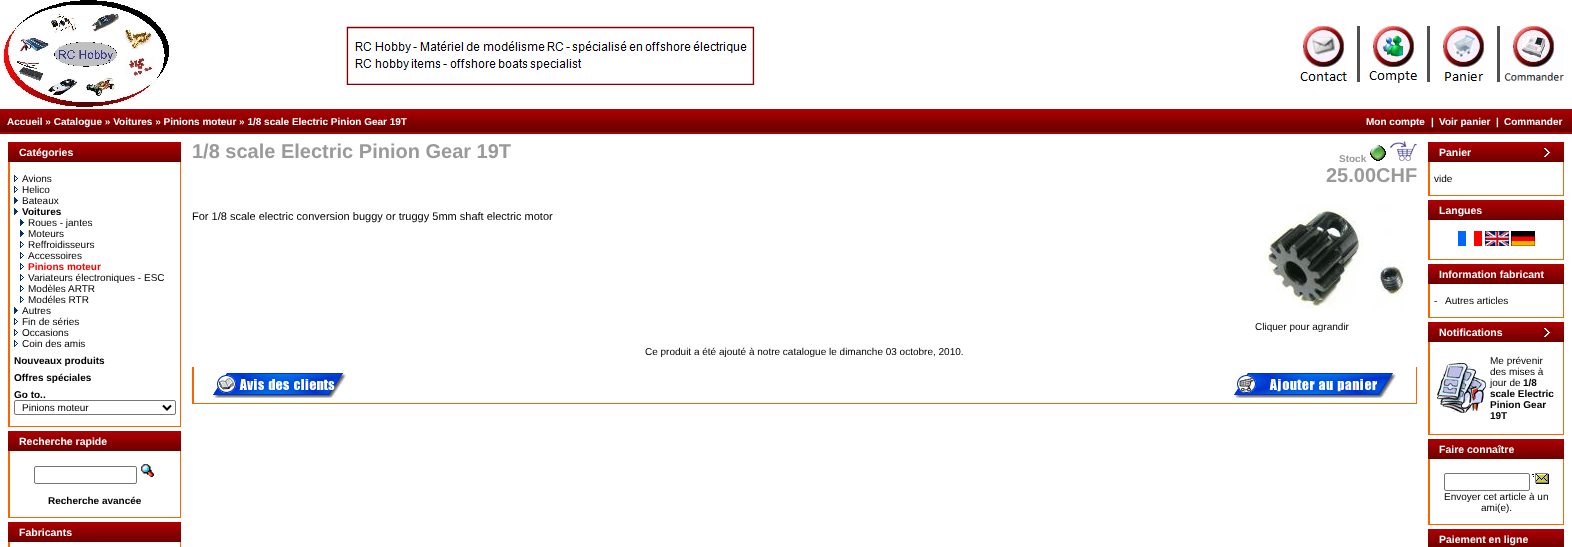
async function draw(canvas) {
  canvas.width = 1572;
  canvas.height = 547;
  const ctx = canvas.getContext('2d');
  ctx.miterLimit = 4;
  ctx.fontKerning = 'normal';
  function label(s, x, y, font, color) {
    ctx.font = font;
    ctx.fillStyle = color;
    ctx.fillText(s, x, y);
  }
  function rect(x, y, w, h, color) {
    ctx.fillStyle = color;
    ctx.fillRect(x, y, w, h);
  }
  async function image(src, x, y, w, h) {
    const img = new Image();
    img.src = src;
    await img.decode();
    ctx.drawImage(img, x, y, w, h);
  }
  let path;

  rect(0, 0, 1572, 547, '#fff');
  await image('assets/img1.png', 0, 0, 169, 108);
  await image('assets/img2.png', 346, 26, 409, 59);
  await image('assets/img3.png', 1300, 26, 47, 55);
  rect(1357, 26, 3, 56, '#505050');
  await image('assets/img4.png', 1369, 26, 48, 57);
  rect(1427, 26, 3, 56, '#505050');
  await image('assets/img5.png', 1443, 26, 41, 55);
  rect(1497, 26, 3, 56, '#505050');
  await image('assets/img6.png', 1504, 26, 60, 55);
  await image('assets/img7.png', 0, 109, 1043, 25);
  label('Accueil » Catalogue » Voitures » Pinions moteur » 1/8 scale Electric Pinion Gear 19T', 7, 125, 'bold 10px Liberation Sans', '#fff');
  await image('assets/img8.png', 1043, 109, 529, 25);
  label('Mon compte', 1366, 125, 'bold 10px Liberation Sans', '#fff');
  label('|', 1431, 125, 'bold 10px Liberation Sans', '#fff');
  label('Voir panier', 1439, 125, 'bold 10px Liberation Sans', '#fff');
  label('|', 1496, 125, 'bold 10px Liberation Sans', '#fff');
  label('Commander', 1504, 125, 'bold 10px Liberation Sans', '#fff');
  await image('assets/img9.png', 8, 142, 11, 20);
  await image('assets/img10.png', 19, 142, 151, 20);
  label('Catégories', 19, 156, 'bold 10.5px Liberation Sans', '#fff');
  await image('assets/img9.png', 170, 142, 11, 20);
  rect(180, 162, 1, 265, '#f96500');
  rect(8, 426, 173, 1, '#f96500');
  rect(8, 162, 2, 265, '#f96500');
  await image('assets/img11.png', 14, 175, 4, 7);
  label('Avions', 22, 182, '10px Liberation Sans', '#000');
  await image('assets/img11.png', 14, 186, 4, 7);
  label('Helico', 22, 193, '10px Liberation Sans', '#000');
  await image('assets/img12.png', 14, 197, 4, 7);
  label('Bateaux', 22, 204, '10px Liberation Sans', '#000');
  await image('assets/img12.png', 14, 208, 4, 7);
  label('Voitures', 22, 215, 'bold 10px Liberation Sans', '#000');
  await image('assets/img12.png', 20, 219, 4, 7);
  label('Roues - jantes', 28, 226, '10px Liberation Sans', '#000');
  await image('assets/img12.png', 20, 230, 4, 7);
  label('Moteurs', 28, 237, '10px Liberation Sans', '#000');
  await image('assets/img11.png', 20, 241, 4, 7);
  label('Reffroidisseurs', 28, 248, '10px Liberation Sans', '#000');
  await image('assets/img11.png', 20, 252, 4, 7);
  label('Accessoires', 28, 259, '10px Liberation Sans', '#000');
  await image('assets/img11.png', 20, 263, 4, 7);
  label('Pinions moteur', 28, 270, 'bold 10px Liberation Sans', '#f00');
  await image('assets/img11.png', 20, 274, 4, 7);
  label('Variateurs électroniques - ESC', 28, 281, '10px Liberation Sans', '#000');
  await image('assets/img11.png', 20, 285, 4, 7);
  label('Modèles ARTR', 28, 292, '10px Liberation Sans', '#000');
  await image('assets/img11.png', 20, 296, 4, 7);
  label('Modéles RTR', 28, 303, '10px Liberation Sans', '#000');
  await image('assets/img12.png', 14, 307, 4, 7);
  label('Autres', 22, 314, '10px Liberation Sans', '#000');
  await image('assets/img11.png', 14, 318, 4, 7);
  label('Fin de séries', 22, 325, '10px Liberation Sans', '#000');
  await image('assets/img11.png', 14, 329, 4, 7);
  label('Occasions', 22, 336, '10px Liberation Sans', '#000');
  await image('assets/img11.png', 14, 340, 4, 7);
  label('Coin des amis', 22, 347, '10px Liberation Sans', '#000');
  label('Nouveaux produits', 14, 364, 'bold 10px Liberation Sans', '#000');
  label('Offres spéciales', 14, 381, 'bold 10px Liberation Sans', '#000');
  label('Go to..', 14, 398, 'bold 10px Liberation Sans', '#000');
  ctx.beginPath();
  ctx.roundRect(14.5, 400.5, 161, 14, 1.5);
  ctx.strokeStyle = '#767676';
  ctx.stroke();
  path = new Path2D('M163 405.5L167 409.5L171 405.5');
  ctx.strokeStyle = '#000';
  ctx.lineWidth = 2;
  ctx.stroke(path);
  label('Pinions moteur', 22, 411, '10px Liberation Sans', '#000');
  await image('assets/img9.png', 8, 431, 11, 20);
  await image('assets/img10.png', 19, 431, 151, 20);
  label('Recherche rapide', 19, 445, 'bold 10.5px Liberation Sans', '#fff');
  await image('assets/img9.png', 170, 431, 11, 20);
  rect(180, 451, 1, 67, '#f96500');
  rect(8, 517, 173, 1, '#f96500');
  rect(8, 451, 2, 67, '#f96500');
  ctx.beginPath();
  ctx.roundRect(34.5, 466.5, 102, 17, 1.5);
  ctx.strokeStyle = '#767676';
  ctx.lineWidth = 1;
  ctx.stroke();
  await image('assets/img13.png', 141, 464, 13, 13);
  label('Recherche avancée', 48, 504, 'bold 10px Liberation Sans', '#000');
  await image('assets/img9.png', 8, 522, 11, 20);
  await image('assets/img10.png', 19, 522, 151, 20);
  label('Fabricants', 19, 536, 'bold 10.5px Liberation Sans', '#fff');
  await image('assets/img9.png', 170, 522, 11, 20);
  rect(180, 542, 1, 5, '#f96500');
  rect(8, 542, 2, 5, '#f96500');
  label('1/8 scale Electric Pinion Gear 19T', 192, 158, 'bold 20px Liberation Sans', '#9a9a9a');
  label('Stock', 1339, 162, 'bold 10px Liberation Sans', '#9a9a9a');
  await image('assets/img14.png', 1370, 145, 16, 16);
  await image('assets/img15.png', 1390, 141, 27, 20);
  label('25.00CHF', 1326, 182, 'bold 20px Liberation Sans', '#9a9a9a');
  label('For 1/8 scale electric conversion buggy or truggy 5mm shaft electric motor', 192, 220, '11px Liberation Sans', '#000');
  await image('assets/img16.png', 1260, 204, 145, 105);
  label('Cliquer pour agrandir', 1255, 330, '10px Liberation Sans', '#000');
  label('Ce produit a été ajouté à notre catalogue le dimanche 03 octobre, 2010.', 645, 355, '10px Liberation Sans', '#000');
  rect(1416, 367, 1, 37, '#f96500');
  rect(192, 403, 1225, 1, '#f96500');
  rect(192, 367, 2, 37, '#f96500');
  await image('assets/img17.png', 213, 373, 133, 25);
  await image('assets/img18.png', 1234, 373, 162, 25);
  await image('assets/img9.png', 1428, 142, 11, 20);
  await image('assets/img19.png', 1439, 142, 104, 20);
  label('Panier', 1439, 156, 'bold 10.5px Liberation Sans', '#fff');
  await image('assets/img20.png', 1543, 142, 21, 20);
  await image('assets/img21.png', 1543, 148, 10, 11);
  rect(1563, 162, 1, 34, '#f96500');
  rect(1428, 195, 136, 1, '#f96500');
  rect(1428, 162, 2, 34, '#f96500');
  label('vide', 1434, 182, '10px Liberation Sans', '#000');
  await image('assets/img9.png', 1428, 200, 11, 20);
  await image('assets/img22.png', 1439, 200, 114, 20);
  label('Langues', 1439, 214, 'bold 10.5px Liberation Sans', '#fff');
  await image('assets/img9.png', 1553, 200, 11, 20);
  rect(1563, 220, 1, 40, '#f96500');
  rect(1428, 259, 136, 1, '#f96500');
  rect(1428, 220, 2, 40, '#f96500');
  await image('assets/img23.png', 1458, 231, 24, 15);
  await image('assets/img24.png', 1485, 231, 24, 15);
  await image('assets/img25.png', 1511, 231, 24, 15);
  await image('assets/img9.png', 1428, 264, 11, 20);
  await image('assets/img22.png', 1439, 264, 114, 20);
  label('Information fabricant', 1439, 278, 'bold 10.5px Liberation Sans', '#fff');
  await image('assets/img9.png', 1553, 264, 11, 20);
  rect(1563, 284, 1, 34, '#f96500');
  rect(1428, 317, 136, 1, '#f96500');
  rect(1428, 284, 2, 34, '#f96500');
  label('-', 1434, 304, '10px Liberation Sans', '#000');
  label('Autres articles', 1445, 304, '10px Liberation Sans', '#000');
  await image('assets/img9.png', 1428, 322, 11, 20);
  await image('assets/img19.png', 1439, 322, 104, 20);
  label('Notifications', 1439, 336, 'bold 10.5px Liberation Sans', '#fff');
  await image('assets/img20.png', 1543, 322, 21, 20);
  await image('assets/img21.png', 1543, 328, 10, 11);
  rect(1563, 342, 1, 93, '#f96500');
  rect(1428, 434, 136, 1, '#f96500');
  rect(1428, 342, 2, 93, '#f96500');
  await image('assets/img26.png', 1437, 363, 49, 50);
  label('Me prévenir', 1490, 364, '10px Liberation Sans', '#000');
  label('des mises à', 1490, 375, '10px Liberation Sans', '#000');
  label('jour de', 1490, 386, '10px Liberation Sans', '#000');
  label('1/8', 1523, 386, 'bold 10px Liberation Sans', '#000');
  label('scale Electric', 1490, 397, 'bold 10px Liberation Sans', '#000');
  label('Pinion Gear', 1490, 408, 'bold 10px Liberation Sans', '#000');
  label('19T', 1490, 419, 'bold 10px Liberation Sans', '#000');
  await image('assets/img9.png', 1428, 439, 11, 20);
  await image('assets/img22.png', 1439, 439, 114, 20);
  label('Faire connaître', 1439, 453, 'bold 10.5px Liberation Sans', '#fff');
  await image('assets/img9.png', 1553, 439, 11, 20);
  rect(1563, 459, 1, 66, '#f96500');
  rect(1428, 524, 136, 1, '#f96500');
  rect(1428, 459, 2, 66, '#f96500');
  ctx.beginPath();
  ctx.roundRect(1444.5, 473.5, 85, 17, 1.5);
  ctx.stroke();
  await image('assets/img27.png', 1532, 473, 17, 11);
  label('Envoyer cet article à un', 1444, 500, '10px Liberation Sans', '#000');
  label('ami(e).', 1481, 511, '10px Liberation Sans', '#000');
  await image('assets/img28.png', 1428, 529, 11, 18);
  await image('assets/img29.png', 1439, 529, 114, 18);
  label('Paiement en ligne', 1439, 543, 'bold 10.5px Liberation Sans', '#fff');
  await image('assets/img28.png', 1553, 529, 11, 18);
}

draw(document.querySelector('canvas'));
